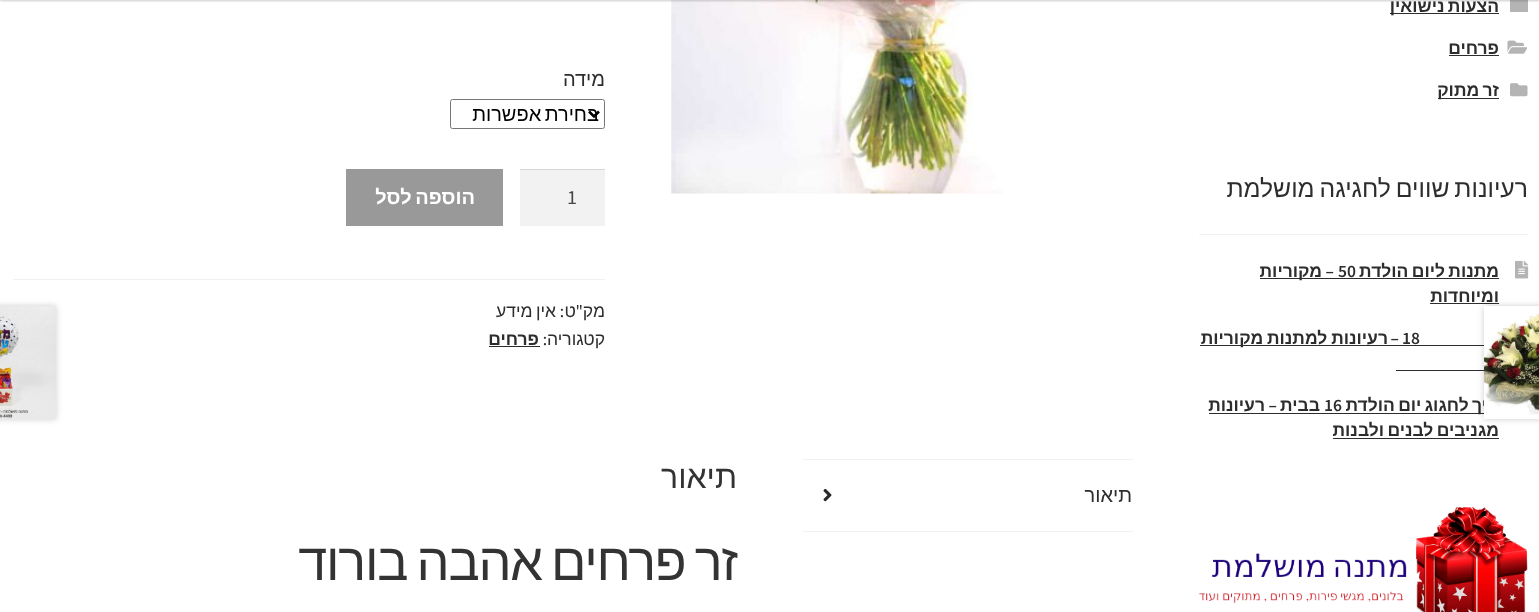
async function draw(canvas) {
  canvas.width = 1539;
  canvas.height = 612;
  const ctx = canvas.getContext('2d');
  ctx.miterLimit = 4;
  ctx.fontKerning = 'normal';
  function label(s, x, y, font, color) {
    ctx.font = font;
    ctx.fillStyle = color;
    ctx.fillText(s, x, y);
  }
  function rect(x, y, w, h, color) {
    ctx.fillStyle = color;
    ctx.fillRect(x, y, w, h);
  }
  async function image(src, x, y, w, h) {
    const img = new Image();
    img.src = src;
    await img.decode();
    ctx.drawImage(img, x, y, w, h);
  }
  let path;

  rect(0, 0, 1539, 612, '#fff');
  rect(1510, 0, 18, 12, '#b4b4b4');
  await image('assets/img5.png', 671, 0, 331, 194);
  ctx.fillStyle = '#00000033';
  ctx.filter = 'blur(1px)';
  ctx.beginPath();
  ctx.rect(0, -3, 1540, 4);
  ctx.fill();
  ctx.filter = 'none';
  rect(1390, 13, 109, 1, '#2d2d2d');
  ctx.wordSpacing = '-1.5px';
  ctx.direction = 'rtl';
  label('הצעות נישואין', 1499, 12, 'bold 17.5px Liberation Sans', '#2d2d2d');
  await image('assets/img1.png', 1507, 40, 21, 14);
  ctx.wordSpacing = '0px';
  label('פרחים', 1499, 54, 'bold 17.5px Liberation Sans', '#2d2d2d');
  rect(1449, 55, 50, 1, '#2d2d2d');
  await image('assets/img2.png', 1510, 83, 18, 14);
  rect(1438, 98, 61, 1, '#2d2d2d');
  ctx.wordSpacing = '-1.5px';
  label('זר מתוק', 1499, 96, 'bold 17.5px Liberation Sans', '#2d2d2d');
  rect(1199, 234, 329, 1, '#f2f2f2');
  ctx.wordSpacing = '-2px';
  label('רעיונות שווים לחגיגה מושלמת', 1528, 197, '24.75px Liberation Sans', '#2d2d2d');
  await image('assets/img3.png', 1515, 260, 14, 19);
  ctx.wordSpacing = '-1.5px';
  label('מתנות ליום הולדת', 1499, 277, 'bold 17.5px Liberation Sans', '#2d2d2d');
  ctx.wordSpacing = '0px';
  ctx.direction = 'ltr';
  label('50', 1338, 277, '600 17.5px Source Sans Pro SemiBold', '#2d2d2d');
  ctx.direction = 'rtl';
  label('–', 1334, 277, '600 17.5px Source Sans Pro SemiBold', '#2d2d2d');
  rect(1260, 278, 239, 1, '#2d2d2d');
  label('מקוריות', 1322, 277, 'bold 17.5px Liberation Sans', '#2d2d2d');
  label('ומיוחדות', 1499, 302, 'bold 17.5px Liberation Sans', '#2d2d2d');
  rect(1430, 303, 69, 1, '#2d2d2d');
  ctx.direction = 'ltr';
  label('18', 1402, 344, '600 17.5px Source Sans Pro SemiBold', '#2d2d2d');
  ctx.direction = 'rtl';
  label('–', 1399, 344, '600 17.5px Source Sans Pro SemiBold', '#2d2d2d');
  rect(1200, 345, 284, 1, '#2d2d2d');
  rect(1396, 370, 88, 1, '#2d2d2d');
  ctx.wordSpacing = '-1px';
  label('רעיונות למתנות מקוריות', 1388, 344, 'bold 17.5px Liberation Sans', '#2d2d2d');
  rect(1209, 413, 275, 1, '#2d2d2d');
  ctx.wordSpacing = '-1.5px';
  label('איך לחגוג יום הולדת', 1499, 411, 'bold 17.5px Liberation Sans', '#2d2d2d');
  ctx.wordSpacing = '0px';
  ctx.direction = 'ltr';
  label('16', 1324, 411, '600 17.5px Source Sans Pro SemiBold', '#2d2d2d');
  ctx.direction = 'rtl';
  label('בבית', 1320, 411, 'bold 17.5px Liberation Sans', '#2d2d2d');
  label('–', 1277, 411, '600 17.5px Source Sans Pro SemiBold', '#2d2d2d');
  label('רעיונות', 1265, 411, 'bold 17.5px Liberation Sans', '#2d2d2d');
  ctx.wordSpacing = '-1.5px';
  label('מגניבים לבנים ולבנות', 1499, 436, 'bold 17.5px Liberation Sans', '#2d2d2d');
  rect(1333, 438, 166, 1, '#2d2d2d');
  await image('assets/img4.png', 1198, 507, 330, 105);
  ctx.wordSpacing = '0px';
  label('מידה', 605, 86, '20px Liberation Sans', '#2d2d2d');
  ctx.beginPath();
  ctx.roundRect(450.5, 99.5, 154, 29, 2);
  ctx.strokeStyle = '#767676';
  ctx.stroke();
  path = new Path2D('M589 111.5L594 116.5L599 111.5');
  ctx.strokeStyle = '#000';
  ctx.lineWidth = 2.5;
  ctx.stroke(path);
  ctx.wordSpacing = '-2px';
  label('בחירת אפשרות', 599, 121, '20px Liberation Sans', '#000');
  rect(520, 170, 85, 56, '#f2f2f2');
  rect(520, 169, 85, 1, '#d4d4d4');
  ctx.wordSpacing = '0px';
  ctx.direction = 'ltr';
  label('1', 567, 204, '20px Source Sans Pro', '#43454b');
  rect(346, 169, 157, 57, '#999');
  ctx.wordSpacing = '-2px';
  ctx.direction = 'rtl';
  label('הוספה לסל', 475, 204, 'bold 20px Liberation Sans', '#fff');
  rect(13, 279, 592, 1, '#f2f2f2');
  ctx.wordSpacing = '0px';
  label('מק', 605, 317, '17.5px Liberation Sans', '#2d2d2d');
  label('"', 583, 317, '17.5px Source Sans Pro', '#2d2d2d');
  label('ט', 576, 317, '17.5px Liberation Sans', '#2d2d2d');
  label(':', 564, 317, '17.5px Source Sans Pro', '#2d2d2d');
  ctx.wordSpacing = '-1.5px';
  label('אין מידע', 556, 317, '17.5px Liberation Sans', '#2d2d2d');
  ctx.wordSpacing = '0px';
  label('קטגוריה', 605, 345, '17.5px Liberation Sans', '#2d2d2d');
  label(':', 547, 345, '17.5px Source Sans Pro', '#2d2d2d');
  label('פרחים', 539, 345, 'bold 17.5px Liberation Sans', '#2d2d2d');
  rect(489, 346, 51, 1, '#2d2d2d');
  ctx.fillStyle = '#00000033';
  ctx.filter = 'blur(3px)';
  ctx.beginPath();
  ctx.rect(1484, 306, 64, 113);
  ctx.fill();
  ctx.filter = 'none';
  rect(1484, 306, 55, 113, '#fff');
  await image('assets/img6.png', 1484, 313, 55, 102);
  ctx.fillStyle = '#00000033';
  ctx.filter = 'blur(3px)';
  ctx.beginPath();
  ctx.rect(-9, 306, 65, 113);
  ctx.fill();
  ctx.filter = 'none';
  await image('assets/img7.png', 0, 306, 56, 113);
  rect(803, 459, 330, 1, '#f2f2f2');
  rect(803, 531, 330, 1, '#f2f2f2');
  label('תיאור', 1132, 502, '20px Liberation Sans', '#2d2d2d');
  await image('assets/img8.png', 823, 488, 9, 14);
  label('תיאור', 737, 488, '32px Liberation Sans', '#333');
  ctx.letterSpacing = '-1.25px';
  ctx.wordSpacing = '-4px';
  label('זר פרחים אהבה בורוד', 737, 580, '52.25px Liberation Sans', '#333');
}

draw(document.querySelector('canvas'));
